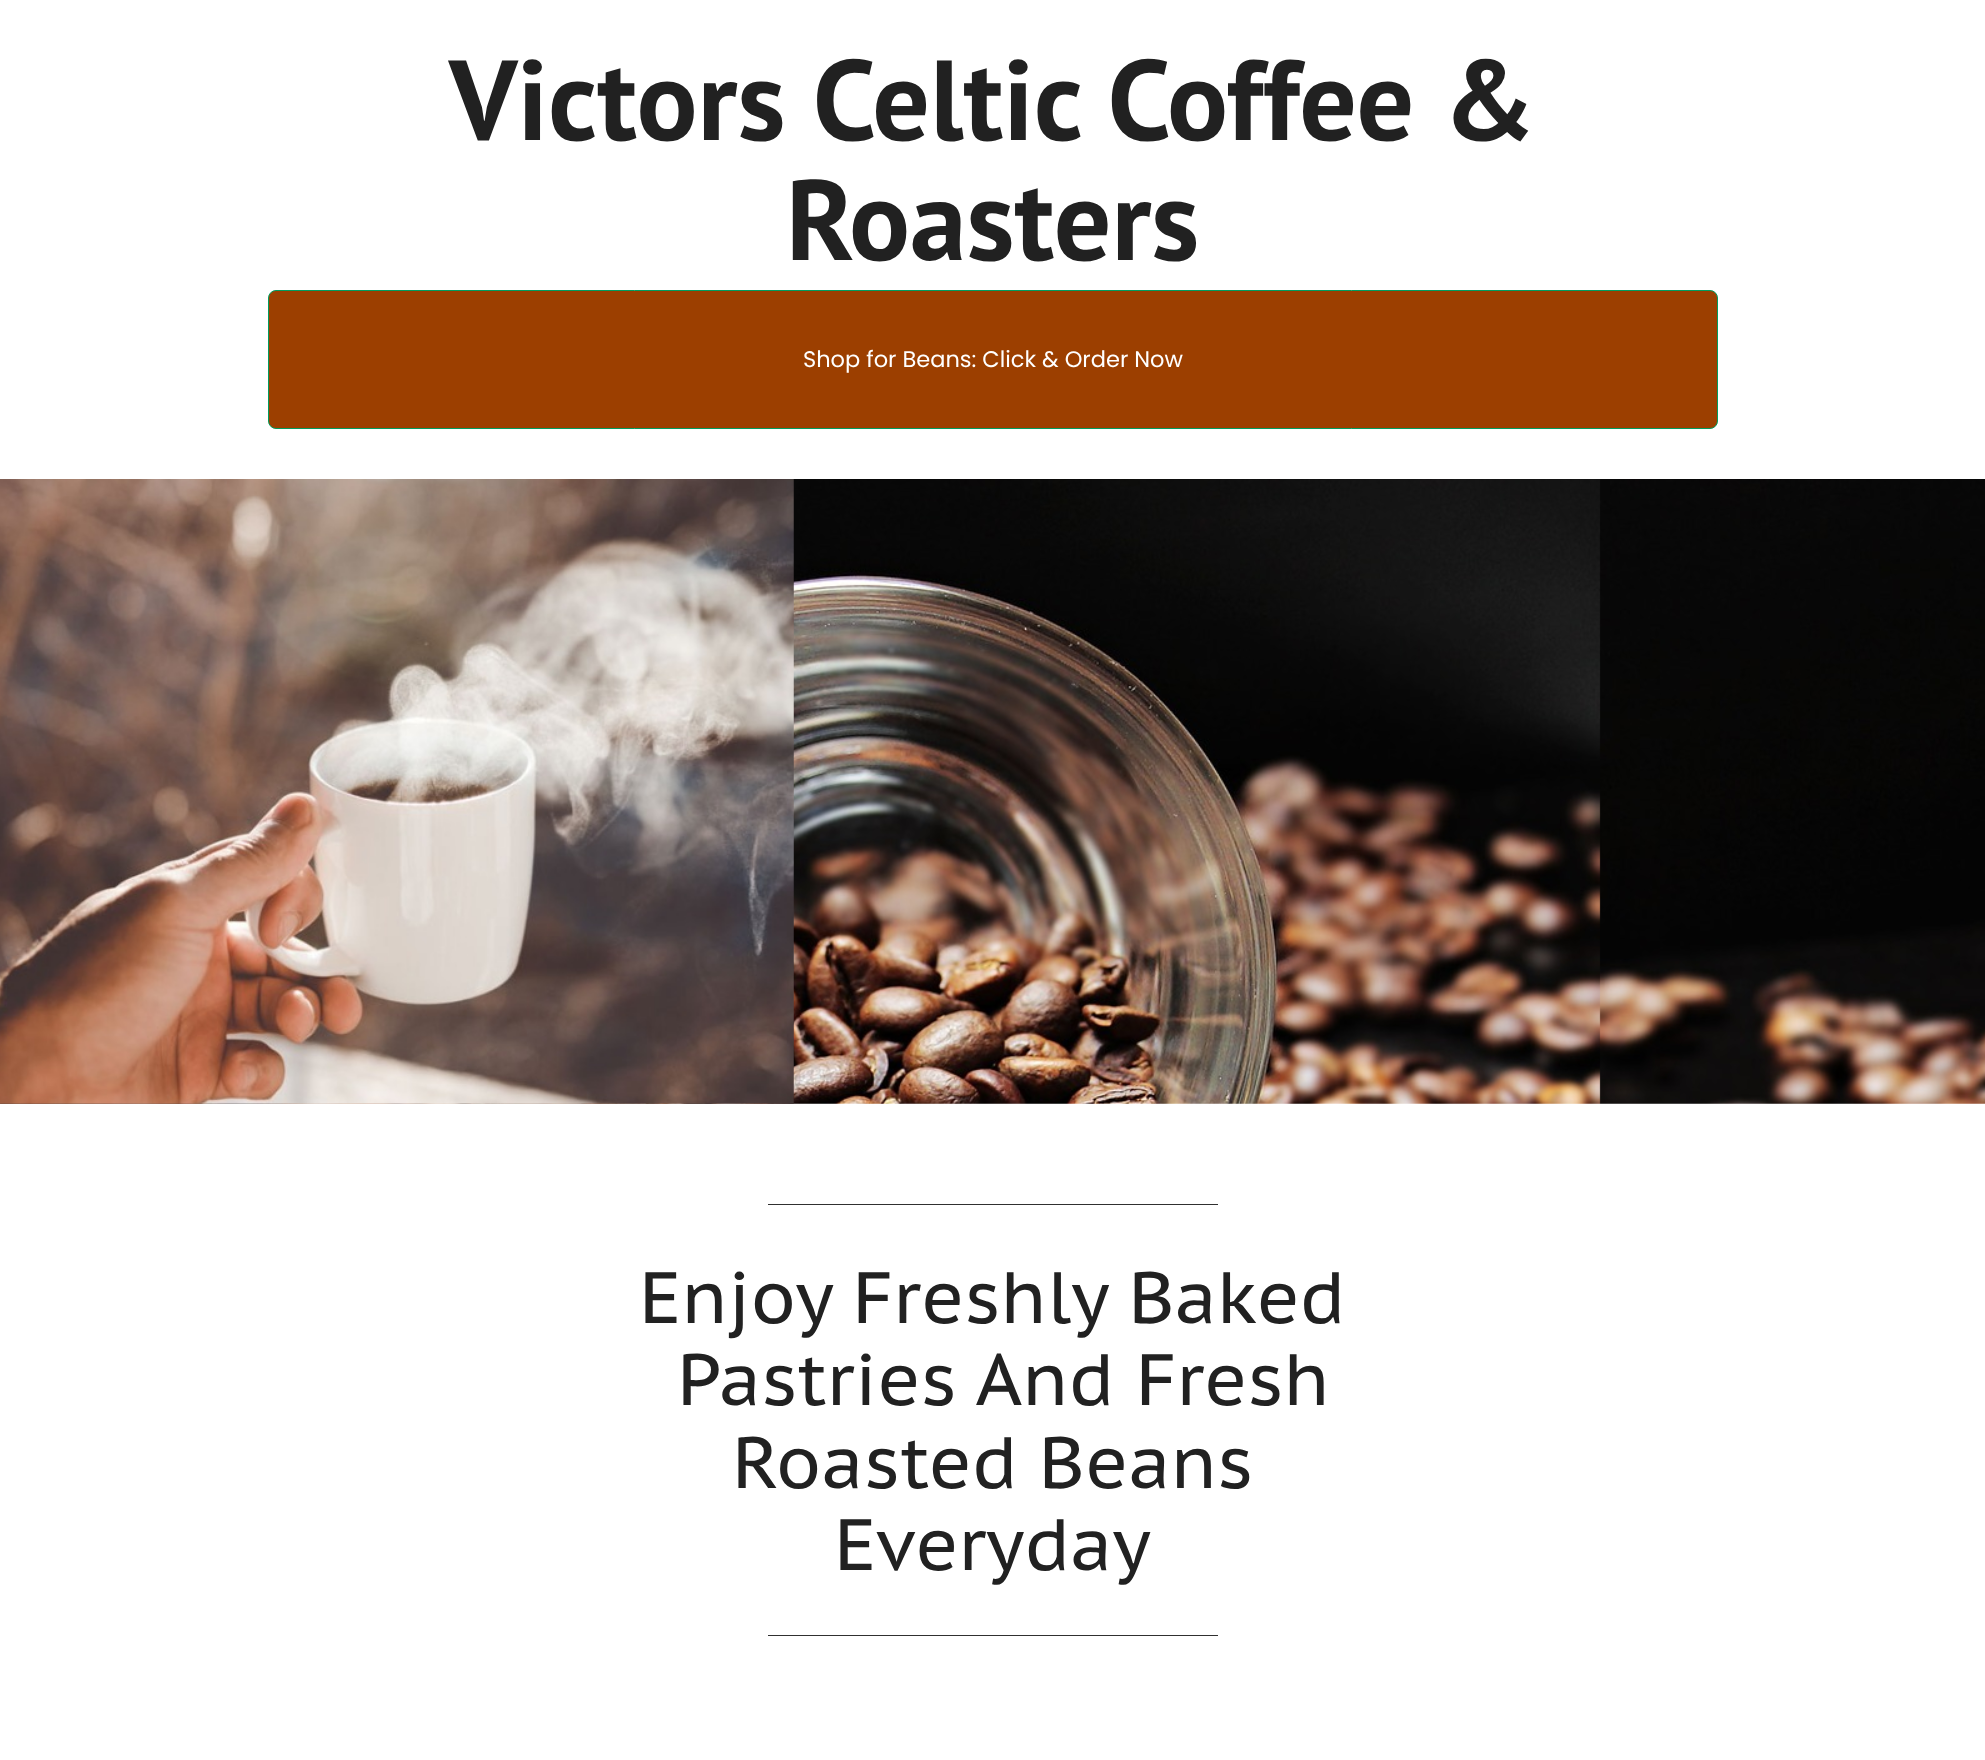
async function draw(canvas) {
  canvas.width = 1985;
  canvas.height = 1760;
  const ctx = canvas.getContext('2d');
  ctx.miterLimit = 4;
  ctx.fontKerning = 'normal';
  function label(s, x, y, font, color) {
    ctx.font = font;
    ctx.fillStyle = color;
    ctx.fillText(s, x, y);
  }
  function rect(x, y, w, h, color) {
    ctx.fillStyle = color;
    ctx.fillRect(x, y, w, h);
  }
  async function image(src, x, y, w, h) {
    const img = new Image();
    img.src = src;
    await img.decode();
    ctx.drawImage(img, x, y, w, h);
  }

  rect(0, 0, 1985, 1760, '#fff');
  label('Victors Celtic Coffee &', 449, 140, 'bold 113.75px PT Sans', '#212121');
  label('Roasters', 786, 260, 'bold 113.75px PT Sans', '#212121');
  ctx.fillStyle = '#9c3f00';
  ctx.beginPath();
  ctx.roundRect(268.5, 290.5, 1449, 138, 7.5);
  ctx.fill();
  ctx.strokeStyle = '#009c5e';
  ctx.stroke();
  label('Shop for Beans: Click & Order Now', 803, 367, '22.5px Poppins', '#fff');
  await image('assets/img1.png', 0, 479, 1985, 625);
  await image('assets/img2.png', 0, 479, 794, 625);
  rect(1960, 779, 20, 20, '#050505');
  rect(768, 1204, 450, 1, '#303030');
  label('Enjoy Freshly Baked', 639, 1323, '72.5px PT Sans Caption', '#212121');
  label('Pastries And Fresh', 677, 1405, '72.5px PT Sans Caption', '#212121');
  label('Roasted Beans', 732, 1488, '72.5px PT Sans Caption', '#212121');
  label('Everyday', 834, 1570, '72.5px PT Sans Caption', '#212121');
  rect(768, 1635, 450, 1, '#303030');
}

draw(document.querySelector('canvas'));
